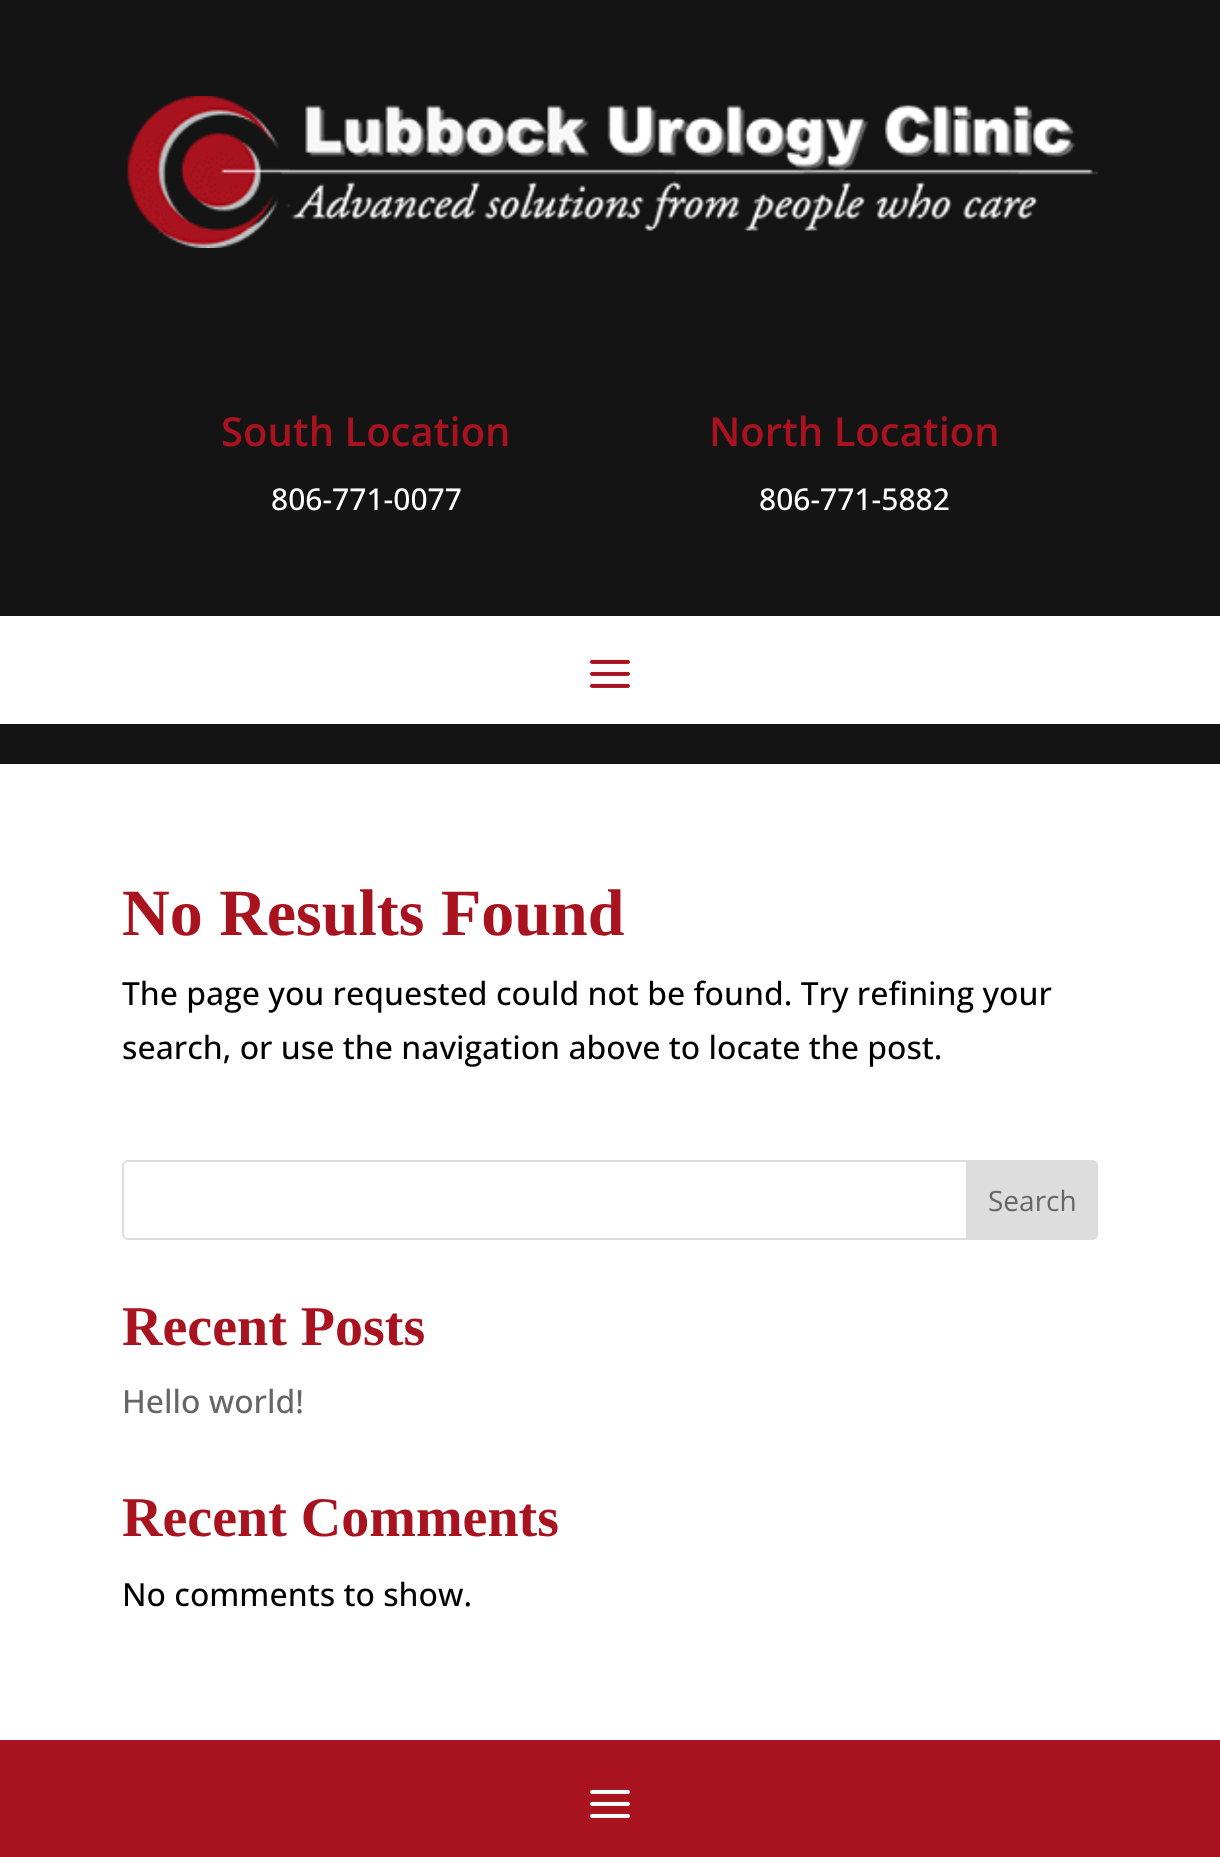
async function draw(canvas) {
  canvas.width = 1220;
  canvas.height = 1857;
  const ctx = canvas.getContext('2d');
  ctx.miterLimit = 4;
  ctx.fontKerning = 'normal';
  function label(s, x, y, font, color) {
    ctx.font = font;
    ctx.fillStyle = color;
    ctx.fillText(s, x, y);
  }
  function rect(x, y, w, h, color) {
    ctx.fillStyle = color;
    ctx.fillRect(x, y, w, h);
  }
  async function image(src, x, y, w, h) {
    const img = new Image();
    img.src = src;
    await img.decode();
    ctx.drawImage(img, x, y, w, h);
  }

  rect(0, 0, 1220, 1857, '#fff');
  rect(0, 0, 1220, 764, '#141414');
  await image('assets/img1.png', 127, 96, 971, 152);
  label('South Location', 221, 446, '600 40px Open Sans', '#a8131f');
  label('806-771-0077', 271, 510, '500 30px Open Sans', '#fff');
  label('North Location', 709, 446, '600 40px Open Sans', '#a8131f');
  label('806-771-5882', 759, 510, '500 30px Open Sans', '#fff');
  rect(0, 616, 1220, 108, '#fff');
  await image('assets/img2.png', 590, 659, 40, 29);
  label('No Results Found', 122, 935, 'bold 66px Liberation Serif', '#a8131f');
  label('The page you requested could not be found. Try refining your', 122, 1005, '500 32px Open Sans', '#000');
  label('search, or use the navigation above to locate the post.', 122, 1059, '500 32px Open Sans', '#000');
  ctx.beginPath();
  ctx.roundRect(123, 1161, 974, 78, 5);
  ctx.strokeStyle = '#ddd';
  ctx.lineWidth = 2;
  ctx.stroke();
  ctx.fillStyle = '#ddd';
  ctx.beginPath();
  ctx.roundRect(967, 1161, 130, 78, [0, 5, 5, 0]);
  ctx.fill();
  ctx.stroke();
  label('Search', 988, 1211, '28px Open Sans', '#666');
  label('Recent Posts', 122, 1345, 'bold 56px Liberation Serif', '#a8131f');
  label('Hello world!', 122, 1413, '500 32px Open Sans', '#666');
  label('Recent Comments', 122, 1536, 'bold 56px Liberation Serif', '#a8131f');
  label('No comments to show.', 122, 1606, '500 32px Open Sans', '#000');
  rect(0, 1740, 1220, 117, '#a8131f');
  await image('assets/img3.png', 590, 1789, 40, 29);
}

draw(document.querySelector('canvas'));
